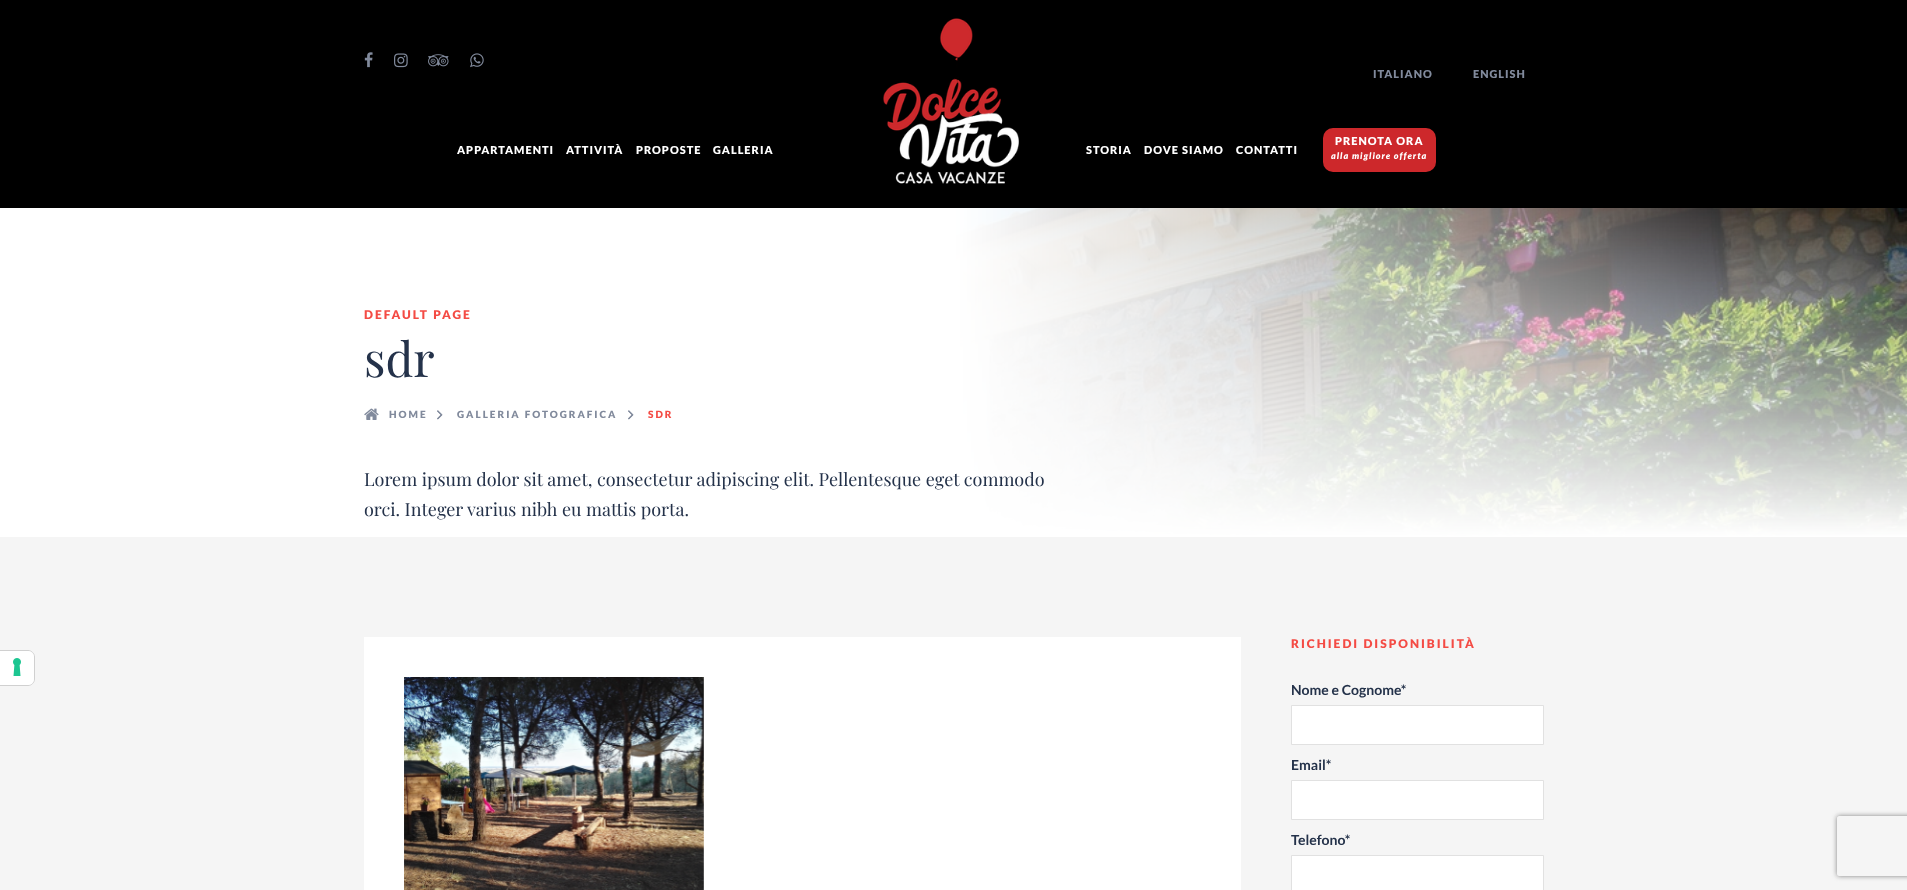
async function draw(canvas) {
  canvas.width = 1907;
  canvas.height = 890;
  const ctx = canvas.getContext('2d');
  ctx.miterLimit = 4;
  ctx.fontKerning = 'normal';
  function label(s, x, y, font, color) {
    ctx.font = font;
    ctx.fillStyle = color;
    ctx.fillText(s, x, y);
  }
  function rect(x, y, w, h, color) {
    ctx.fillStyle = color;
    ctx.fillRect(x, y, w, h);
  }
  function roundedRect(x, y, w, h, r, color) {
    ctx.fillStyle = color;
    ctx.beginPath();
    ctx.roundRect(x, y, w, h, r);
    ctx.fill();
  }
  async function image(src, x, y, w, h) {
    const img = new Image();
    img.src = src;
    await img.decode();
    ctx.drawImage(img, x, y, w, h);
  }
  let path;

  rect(0, 0, 1907, 890, '#000');
  await image('assets/img1.png', 364, 52, 9, 16);
  await image('assets/img2.png', 394, 53, 14, 15);
  await image('assets/img3.png', 428, 54, 21, 13);
  await image('assets/img4.png', 470, 53, 14, 15);
  ctx.letterSpacing = '1px';
  label('ITALIANO', 1373, 78, '900 11px Lato', '#818a9c');
  label('ENGLISH', 1473, 78, '900 11px Lato', '#818a9c');
  await image('assets/img5.png', 883, 18, 136, 166);
  label('APPARTAMENTI', 457, 154, '900 11px Lato', '#fff');
  label('ATTIVITÀ', 566, 154, '900 11px Lato', '#fff');
  label('PROPOSTE', 636, 154, '900 11px Lato', '#fff');
  label('GALLERIA', 713, 154, '900 11px Lato', '#fff');
  label('STORIA', 1086, 154, '900 11px Lato', '#fff');
  label('DOVE SIAMO', 1144, 154, '900 11px Lato', '#fff');
  label('CONTATTI', 1236, 154, '900 11px Lato', '#fff');
  roundedRect(1323, 128, 113, 44, 10, '#cd282b');
  label('PRENOTA ORA', 1335, 145, '900 11px Lato', '#fff');
  label('alla migliore offerta', 1331, 159, 'italic 900 9px Lato', '#fff');
  rect(0, 537, 1907, 353, '#f5f5f5');
  path = new Path2D('M-.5 650.5H28C31.5 650.5 34.5 653.5 34.5 657V679C34.5 682.5 31.5 685.5 28 685.5H-.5Z');
  ctx.strokeStyle = '#d0d0d0';
  ctx.stroke(path);
  ctx.fillStyle = '#fff';
  ctx.beginPath();
  ctx.roundRect(0, 651, 34, 34, [0, 6, 6, 0]);
  ctx.fill();
  await image('assets/img6.png', 13, 658, 8, 18);
  rect(0, 208, 954, 329, '#fff');
  ctx.letterSpacing = '2px';
  label('DEFAULT PAGE', 364, 319, '900 12px Lato', '#f44b44');
  ctx.letterSpacing = '0px';
  label('sdr', 364, 377, '48px Playfair Display', '#24324a');
  await image('assets/img7.png', 364, 408, 15, 12);
  ctx.letterSpacing = '2px';
  label('HOME', 389, 418, '900 10px Lato', '#818a9c');
  await image('assets/img8.png', 437, 410, 6, 10);
  await image('assets/img9.png', 437, 410, 6, 10);
  label('GALLERIA FOTOGRAFICA', 457, 418, '900 10px Lato', '#818a9c');
  await image('assets/img8.png', 628, 410, 6, 10);
  await image('assets/img9.png', 628, 410, 6, 10);
  label('SDR', 648, 418, '900 10px Lato', '#f44b44');
  await image('assets/img10.png', 954, 208, 953, 329);
  ctx.letterSpacing = '0px';
  label('Lorem ipsum dolor sit amet, consectetur adipiscing elit. Pellentesque eget commodo', 364, 486, '18px Playfair Display', '#24324a');
  label('orci. Integer varius nibh eu mattis porta.', 364, 516, '18px Playfair Display', '#24324a');
  rect(364, 637, 877, 253, '#fff');
  await image('assets/img11.png', 404, 677, 300, 213);
  ctx.letterSpacing = '2px';
  label('RICHIEDI DISPONIBILITÀ', 1291, 648, '900 12px Lato', '#f44b44');
  ctx.letterSpacing = '0px';
  label('Nome e Cognome*', 1291, 695, 'bold 14px Lato', '#24324a');
  ctx.fillStyle = '#fff';
  ctx.beginPath();
  ctx.rect(1291.5, 705.5, 252, 39);
  ctx.fill();
  ctx.strokeStyle = '#e1e1e1';
  ctx.stroke();
  label('Email*', 1291, 770, 'bold 14px Lato', '#24324a');
  ctx.fillStyle = '#fff';
  ctx.beginPath();
  ctx.rect(1291.5, 780.5, 252, 39);
  ctx.fill();
  ctx.stroke();
  label('Telefono*', 1291, 845, 'bold 14px Lato', '#24324a');
  ctx.fillStyle = '#fff';
  ctx.beginPath();
  ctx.rect(1291.5, 855.5, 252, 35);
  ctx.fill();
  ctx.stroke();
  ctx.save();
  path = new Path2D('M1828 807H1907V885H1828ZM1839 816H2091C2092 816 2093 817 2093 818V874C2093 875 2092 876 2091 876H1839C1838 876 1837 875 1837 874V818C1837 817 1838 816 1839 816Z');
  ctx.clip(path, 'evenodd');
  ctx.fillStyle = '#808080';
  ctx.filter = 'blur(2.5px)';
  ctx.beginPath();
  ctx.roundRect(1837, 816, 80, 60, 2);
  ctx.fill();
  ctx.filter = 'none';
  ctx.restore();
}

draw(document.querySelector('canvas'));
